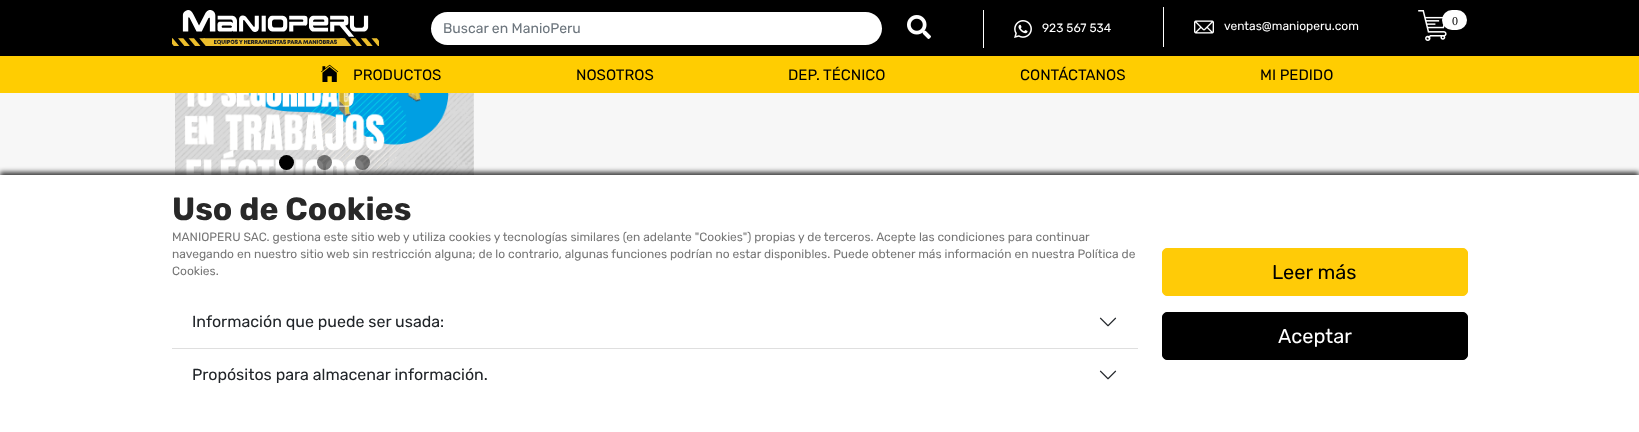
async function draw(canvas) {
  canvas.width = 1639;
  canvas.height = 432;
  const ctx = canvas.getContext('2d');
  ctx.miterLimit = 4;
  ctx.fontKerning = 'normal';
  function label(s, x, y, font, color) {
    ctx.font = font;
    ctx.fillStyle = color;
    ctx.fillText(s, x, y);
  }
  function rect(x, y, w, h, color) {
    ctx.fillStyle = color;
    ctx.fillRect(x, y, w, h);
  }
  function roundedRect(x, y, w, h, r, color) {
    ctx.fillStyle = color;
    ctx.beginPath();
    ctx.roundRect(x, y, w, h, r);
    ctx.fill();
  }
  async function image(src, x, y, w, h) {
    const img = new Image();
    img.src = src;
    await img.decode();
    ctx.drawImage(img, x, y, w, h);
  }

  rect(0, 0, 1639, 432, '#f7f7f7');
  rect(0, 0, 1639, 56, '#000');
  await image('assets/img1.png', 172, 10, 207, 36);
  roundedRect(431, 12, 451, 33, 16.5, '#fff');
  label('Buscar en ManioPeru', 443, 33, '14px Rubik', '#6c757d');
  await image('assets/img2.png', 907, 15, 24, 24);
  await image('assets/img3.png', 1014, 20, 18, 18);
  label('923 567 534', 1042, 32, '12px Rubik', '#fff');
  rect(983, 10, 1, 38, '#fff');
  await image('assets/img4.png', 1194, 20, 20, 14);
  label('ventas@manioperu.com', 1224, 30, '12px Rubik', '#fff');
  rect(1163, 7, 1, 40, '#fff');
  roundedRect(1442, 10, 25, 20, 10, '#fff');
  await image('assets/img5.png', 1418, 10, 29, 31);
  label('0', 1452, 25, '12px Liberation Serif', '#000');
  rect(0, 56, 1639, 37, '#ffcd01');
  await image('assets/img6.png', 321, 64, 18, 18);
  label('PRODUCTOS', 353, 80, '15px Rubik', '#000');
  label('NOSOTROS', 576, 80, '15px Rubik', '#000');
  label('DEP. TÉCNICO', 788, 80, '15px Rubik', '#000');
  label('CONTÁCTANOS', 1020, 80, '15px Rubik', '#000');
  label('MI PEDIDO', 1260, 80, '15px Rubik', '#000');
  await image('assets/img7.png', 175, 93, 299, 82);
  ctx.beginPath();
  ctx.arc(286.5, 162.5, 7.5, 0, 2 * Math.PI);
  ctx.fill();
  ctx.fillStyle = '#00000080';
  ctx.beginPath();
  ctx.arc(324.5, 162.5, 7.5, 0, 2 * Math.PI);
  ctx.fill();
  ctx.beginPath();
  ctx.arc(362.5, 162.5, 7.5, 0, 2 * Math.PI);
  ctx.fill();
  ctx.fillStyle = '#000000bf';
  ctx.filter = 'blur(2.5px)';
  ctx.beginPath();
  ctx.rect(0, 172, 1639, 257);
  ctx.fill();
  ctx.filter = 'none';
  rect(0, 175, 1639, 257, '#fff');
  label('Uso de Cookies', 172, 220, 'bold 32px Rubik', '#282828');
  label('MANIOPERU SAC. gestiona este sitio web y utiliza cookies y tecnologías similares (en adelante "Cookies") propias y de terceros. Acepte las condiciones para continuar', 172, 241, '12px Rubik', '#777');
  label('navegando en nuestro sitio web sin restricción alguna; de lo contrario, algunas funciones podrían no estar disponibles. Puede obtener más información en nuestra Política de', 172, 258, '12px Rubik', '#777');
  label('Cookies.', 172, 275, '12px Rubik', '#777');
  rect(172, 348, 966, 1, '#dfdfdf');
  label('Información que puede ser usada:', 192, 327, '16px Rubik', '#212529');
  await image('assets/img8.png', 1099, 317, 18, 10);
  label('Propósitos para almacenar información.', 192, 380, '16px Rubik', '#212529');
  await image('assets/img8.png', 1099, 370, 18, 10);
  ctx.fillStyle = '#ffcb07';
  ctx.beginPath();
  ctx.roundRect(1162.5, 248.5, 305, 47, 4.5);
  ctx.fill();
  ctx.strokeStyle = '#ffcb07';
  ctx.stroke();
  label('Leer más', 1272, 279, '20px Rubik', '#000');
  ctx.beginPath();
  ctx.roundRect(1162.5, 312.5, 305, 47, 4.5);
  ctx.fill();
  ctx.strokeStyle = '#000';
  ctx.stroke();
  label('Aceptar', 1278, 343, '20px Rubik', '#fff');
}

draw(document.querySelector('canvas'));
